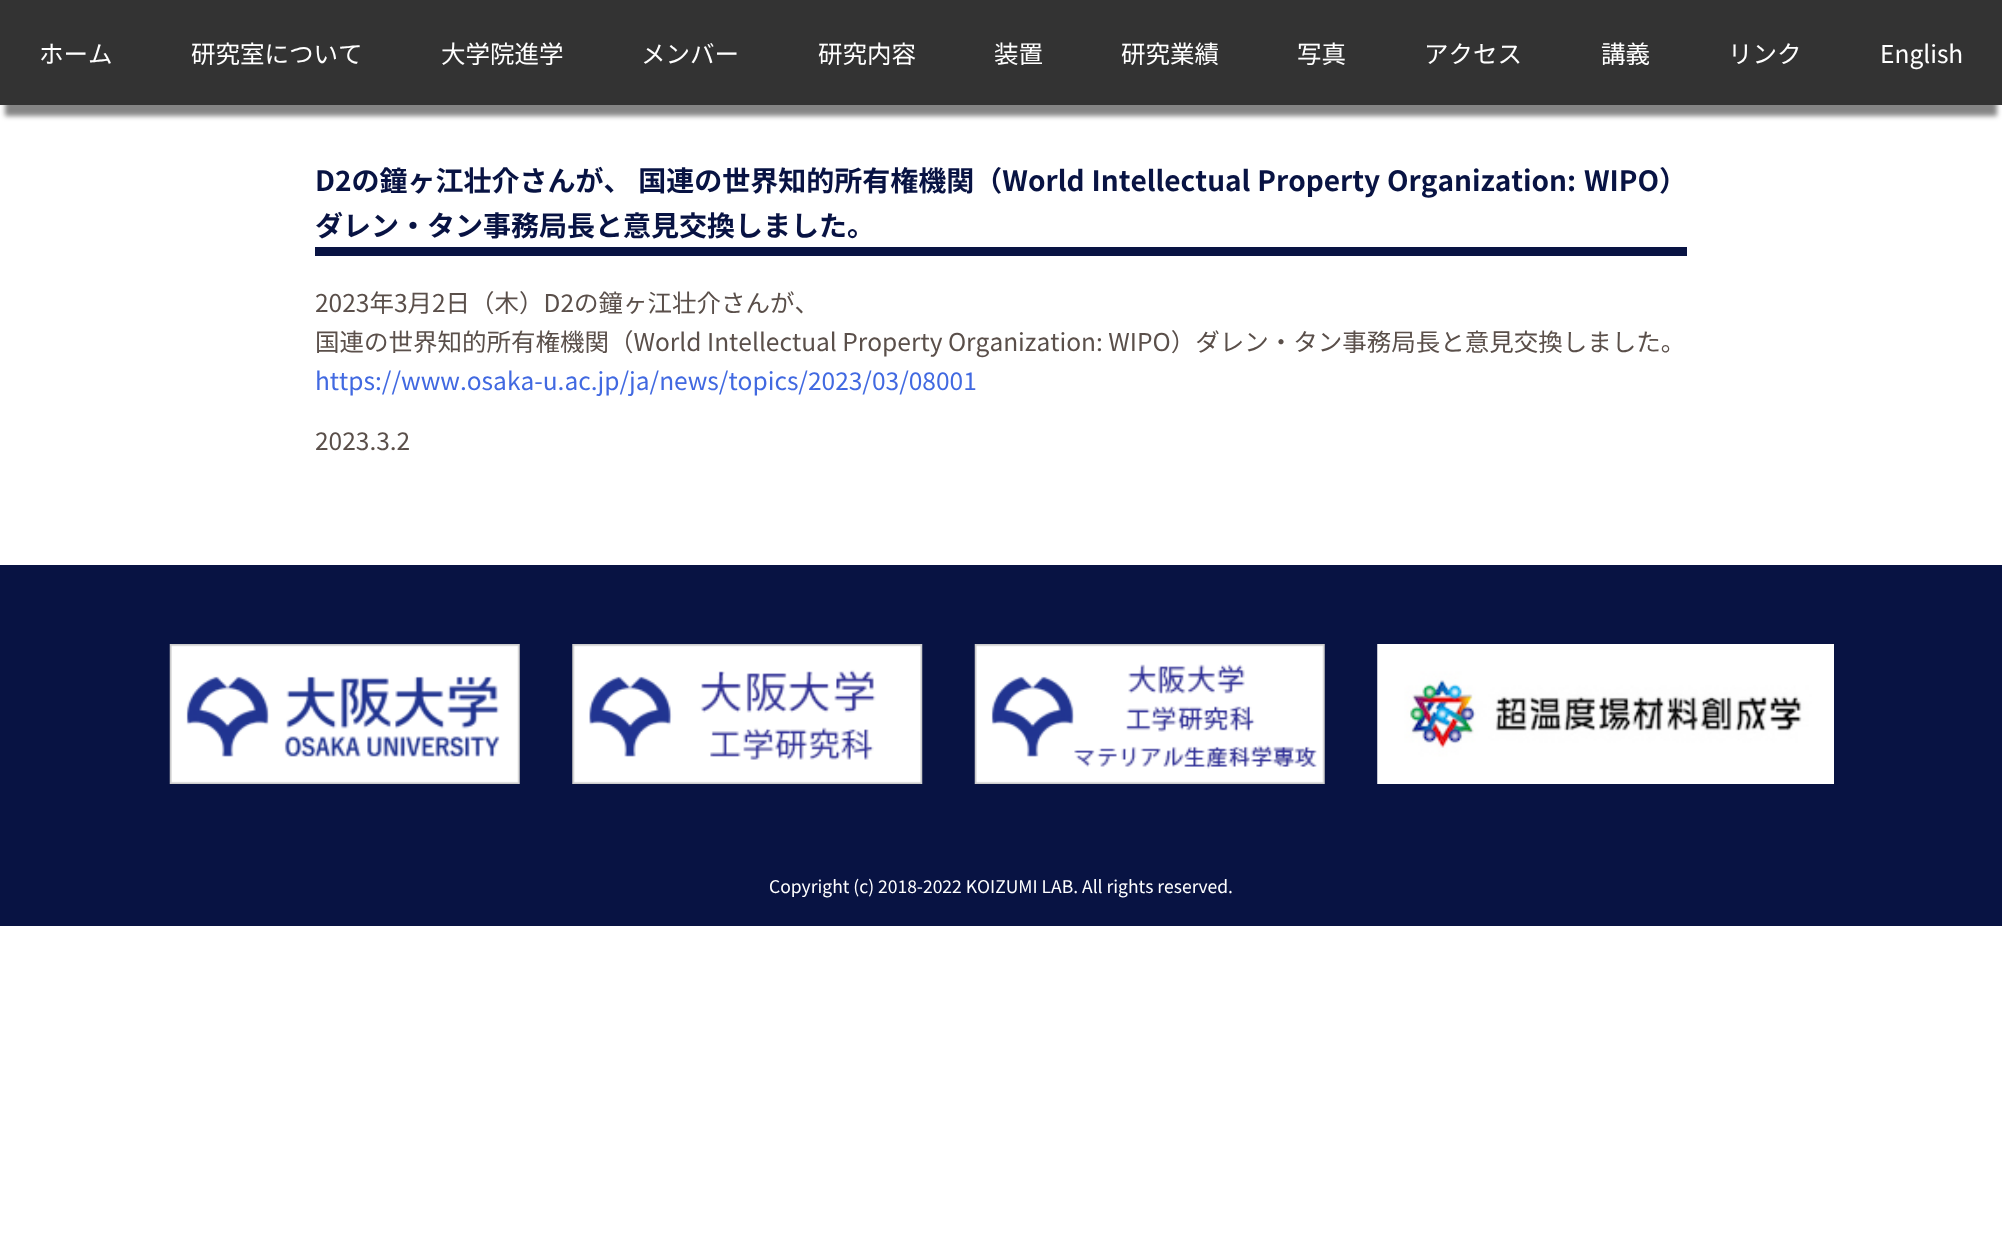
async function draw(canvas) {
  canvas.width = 2002;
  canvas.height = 1249;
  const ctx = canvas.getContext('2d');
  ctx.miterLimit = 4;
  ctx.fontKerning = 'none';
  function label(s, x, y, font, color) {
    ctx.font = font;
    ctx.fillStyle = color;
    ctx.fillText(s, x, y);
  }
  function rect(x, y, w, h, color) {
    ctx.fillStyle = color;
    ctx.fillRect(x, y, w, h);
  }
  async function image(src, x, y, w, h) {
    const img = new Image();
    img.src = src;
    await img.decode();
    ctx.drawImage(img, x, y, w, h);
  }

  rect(0, 0, 2002, 1249, '#fff');
  ctx.fillStyle = '#33333399';
  ctx.filter = 'blur(2.5px)';
  ctx.beginPath();
  ctx.rect(5, 21, 1992, 95);
  ctx.fill();
  ctx.filter = 'none';
  rect(0, 0, 2002, 105, '#333');
  label('ホーム', 39, 63, '24.5px Noto Sans JP', '#fff');
  label('研究室について', 191, 63, '24.5px Noto Sans JP', '#fff');
  label('大学院進学', 441, 63, '24.5px Noto Sans JP', '#fff');
  label('メンバー', 641, 63, '24.5px Noto Sans JP', '#fff');
  label('研究内容', 818, 63, '24.5px Noto Sans JP', '#fff');
  label('装置', 994, 63, '24.5px Noto Sans JP', '#fff');
  label('研究業績', 1121, 63, '24.5px Noto Sans JP', '#fff');
  label('写真', 1297, 63, '24.5px Noto Sans JP', '#fff');
  label('アクセス', 1424, 63, '24.5px Noto Sans JP', '#fff');
  label('講義', 1601, 63, '24.5px Noto Sans JP', '#fff');
  label('リンク', 1728, 63, '24.5px Noto Sans JP', '#fff');
  label('English', 1880, 63, '24.5px Noto Sans JP', '#fff');
  rect(315, 247, 1372, 9, '#081343');
  ctx.wordSpacing = '0.5px';
  label('D2の鐘ヶ江壮介さんが、 国連の世界知的所有権機関（World Intellectual Property Organization:', 315, 191, 'bold 28px Noto Sans JP', '#081343');
  label('WIPO）', 1584, 191, 'bold 28px Noto Sans JP', '#081343');
  ctx.wordSpacing = '0px';
  label('ダレン・タン事務局長と意見交換しました。', 315, 236, 'bold 28px Noto Sans JP', '#081343');
  label('2023年3月2日（木）D2の鐘ヶ江壮介さんが、', 315, 312, '24.5px Noto Sans JP', '#5a4f4a');
  label('国連の世界知的所有権機関（World Intellectual Property Organization: WIPO）ダレン・タン事務局長と意見交換しました。', 315, 351, '24.5px Noto Sans JP', '#5a4f4a');
  label('https://www.osaka-u.ac.jp/ja/news/topics/2023/03/08001', 315, 390, '24.5px Noto Sans JP', '#4169e1');
  label('2023.3.2', 315, 450, '24.5px Noto Sans JP', '#5a4f4a');
  rect(0, 565, 2002, 361, '#081343');
  await image('assets/img1.png', 169, 644, 351, 140);
  await image('assets/img2.png', 572, 644, 351, 140);
  await image('assets/img3.png', 974, 644, 351, 140);
  await image('assets/img4.png', 1377, 644, 457, 140);
  label('Copyright (c) 2018-2022 KOIZUMI LAB. All rights reserved.', 769, 893, '17.5px Noto Sans JP', '#fff');
}

draw(document.querySelector('canvas'));
